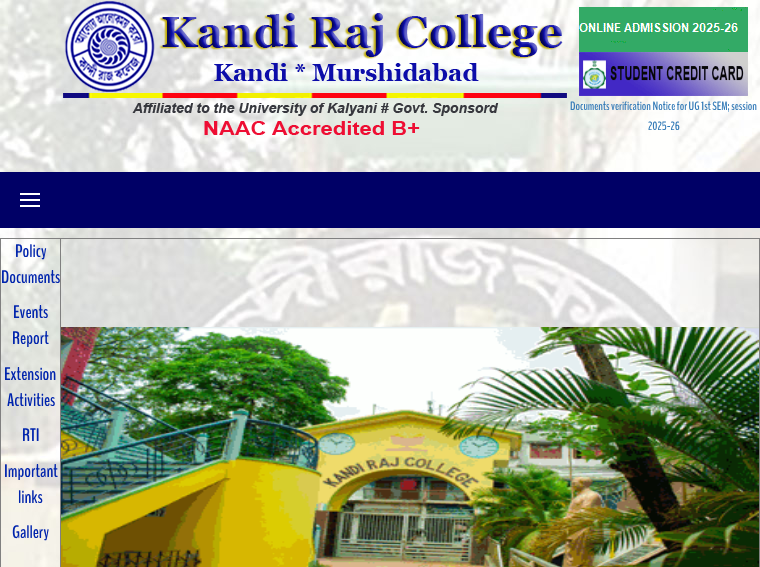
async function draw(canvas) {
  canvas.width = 760;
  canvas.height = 567;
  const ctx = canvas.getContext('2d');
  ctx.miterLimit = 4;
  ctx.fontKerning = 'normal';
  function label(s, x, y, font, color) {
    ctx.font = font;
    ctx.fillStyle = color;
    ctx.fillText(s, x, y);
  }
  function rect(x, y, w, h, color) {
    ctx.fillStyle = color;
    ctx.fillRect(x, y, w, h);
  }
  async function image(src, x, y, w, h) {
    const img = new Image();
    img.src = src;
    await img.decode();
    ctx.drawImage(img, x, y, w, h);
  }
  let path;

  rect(0, 0, 760, 567, '#fff');
  await image('assets/img1.png', 0, 0, 760, 567);
  await image('assets/img2.png', 63, 1, 504, 134);
  await image('assets/img3.png', 579, 7, 169, 45);
  await image('assets/img4.png', 579, 52, 169, 44);
  label('Documents verification Notice for UG 1st SEM; session', 570, 110, 'bold 12px BenchNine', '#337ab7');
  label('2025-26', 648, 130, 'bold 12px BenchNine', '#337ab7');
  rect(0, 172, 760, 56, '#006');
  path = new Path2D('M20 206H40M20 194H40M20 200H40');
  ctx.strokeStyle = '#fff';
  ctx.lineWidth = 2;
  ctx.stroke(path);
  rect(0, 238, 760, 1, '#808080');
  rect(0, 238, 1, 329, '#808080');
  label('Policy', 15, 257, 'bold 18px BenchNine', '#0024ad');
  label('Documents', 1, 283, 'bold 18px BenchNine', '#0024ad');
  label('Events', 13, 318, 'bold 18px BenchNine', '#0024ad');
  label('Report', 12, 344, 'bold 18px BenchNine', '#0024ad');
  label('Extension', 4, 380, 'bold 18px BenchNine', '#0024ad');
  label('Activities', 7, 406, 'bold 18px BenchNine', '#0024ad');
  label('RTI', 22, 441, 'bold 18px BenchNine', '#0024ad');
  label('Important', 4, 477, 'bold 18px BenchNine', '#0024ad');
  label('links', 18, 503, 'bold 18px BenchNine', '#0024ad');
  label('Gallery', 12, 538, 'bold 18px BenchNine', '#0024ad');
  rect(60, 238, 1, 329, '#808080');
  await image('assets/img5.png', 61, 327, 698, 240);
  rect(759, 238, 1, 329, '#808080');
}

draw(document.querySelector('canvas'));
